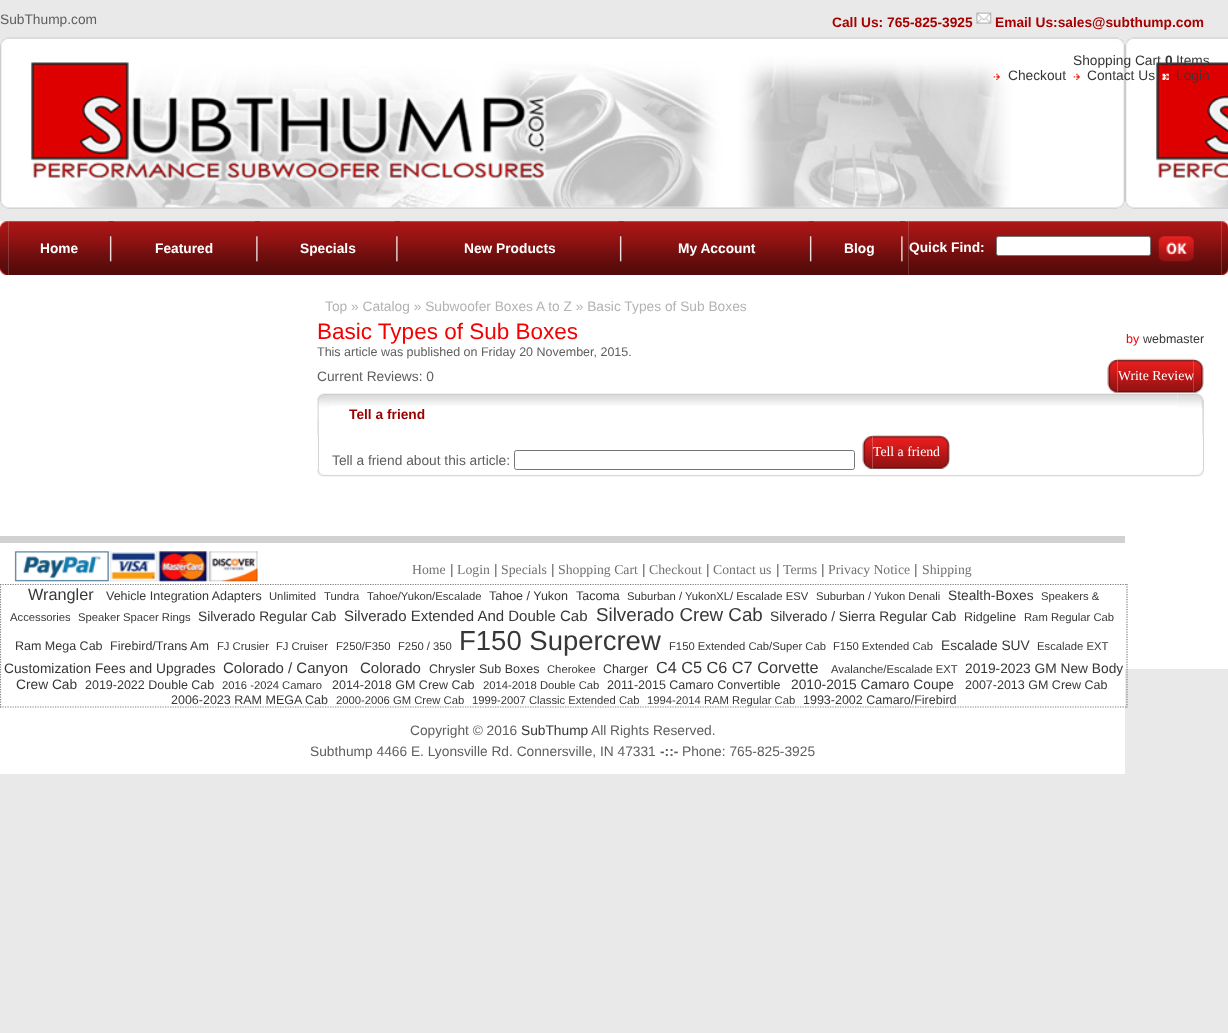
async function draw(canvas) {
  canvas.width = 1228;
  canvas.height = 1033;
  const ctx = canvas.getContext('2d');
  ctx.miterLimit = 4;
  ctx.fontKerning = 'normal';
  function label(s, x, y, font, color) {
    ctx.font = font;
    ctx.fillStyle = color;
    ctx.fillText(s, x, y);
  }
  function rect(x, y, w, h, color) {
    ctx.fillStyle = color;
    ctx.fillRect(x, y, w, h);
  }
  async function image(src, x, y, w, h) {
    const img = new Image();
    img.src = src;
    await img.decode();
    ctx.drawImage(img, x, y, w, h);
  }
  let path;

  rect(0, 0, 1228, 1033, '#e9e9e9');
  rect(0, 275, 1228, 394, '#fff');
  label('SubThump.com', 0, 24, '13.75px Liberation Sans', '#5e5e5e');
  label('Call Us: 765-825-3925', 832, 27, 'bold 13.75px Liberation Sans', '#a70000');
  await image('assets/img1.png', 976, 12, 16, 12);
  label('Email Us:sales@subthump.com', 995, 27, 'bold 13.75px Liberation Sans', '#a70000');
  await image('assets/img2.png', 0, 37, 1228, 172);
  label('Shopping Cart', 1073, 65, '13.75px Liberation Sans', '#373737');
  label('0', 1165, 65, 'bold 13.75px Liberation Sans', '#373737');
  label('Items', 1176, 65, '13.75px Liberation Sans', '#373737');
  await image('assets/img3.png', 993, 73, 7, 7);
  label('Checkout', 1008, 80, '13.75px Liberation Sans', '#373737');
  await image('assets/img4.png', 1073, 73, 7, 7);
  label('Contact Us', 1087, 80, '13.75px Liberation Sans', '#373737');
  await image('assets/img5.png', 1162, 73, 7, 7);
  label('Login', 1176, 80, '13.75px Liberation Sans', '#373737');
  await image('assets/img7.png', 8, 221, 901, 54);
  await image('assets/img6.png', 0, 221, 9, 54);
  label('Home', 40, 253, 'bold 13.75px Liberation Sans', '#fff');
  await image('assets/img8.png', 108, 221, 6, 41);
  label('Featured', 155, 253, 'bold 13.75px Liberation Sans', '#fff');
  await image('assets/img9.png', 255, 221, 5, 41);
  label('Specials', 300, 253, 'bold 13.75px Liberation Sans', '#fff');
  await image('assets/img9.png', 395, 221, 5, 41);
  label('New Products', 464, 253, 'bold 13.75px Liberation Sans', '#fff');
  await image('assets/img8.png', 618, 221, 6, 41);
  label('My Account', 678, 253, 'bold 13.75px Liberation Sans', '#fff');
  await image('assets/img8.png', 808, 221, 6, 41);
  label('Blog', 844, 253, 'bold 13.75px Liberation Sans', '#fff');
  await image('assets/img9.png', 900, 221, 5, 41);
  await image('assets/img10.png', 908, 221, 314, 54);
  label('Quick Find:', 909, 252, 'bold 13.75px Liberation Sans', '#fff');
  ctx.beginPath();
  ctx.roundRect(996.5, 236.5, 154, 19, 2);
  ctx.fill();
  ctx.strokeStyle = '#767676';
  ctx.stroke();
  await image('assets/img11.png', 1158, 236, 36, 26);
  await image('assets/img12.png', 1221, 221, 7, 54);
  label('Top » Catalog » Subwoofer Boxes A to Z » Basic Types of Sub Boxes', 325, 311, '13.75px Liberation Sans', '#b3b3b3');
  label('Basic Types of Sub Boxes', 317, 339, '22.5px Liberation Sans', '#f30000');
  label('by', 1126, 343, '12.5px Liberation Sans', '#f30000');
  label('webmaster', 1143, 343, '12.5px Liberation Sans', '#373737');
  label('This article was published on Friday 20 November, 2015.', 317, 356, '12.5px Liberation Sans', '#5e5e5e');
  label('Current Reviews: 0', 317, 381, '13.75px Liberation Sans', '#5e5e5e');
  await image('assets/img13.png', 1107, 358, 11, 35);
  await image('assets/img14.png', 1117, 358, 77, 35);
  label('Write Review', 1118, 380, '13.75px Liberation Serif', '#fff');
  await image('assets/img15.png', 1193, 358, 11, 35);
  await image('assets/img16.png', 317, 393, 13, 42);
  await image('assets/img17.png', 330, 393, 848, 13);
  label('Tell a friend', 349, 419, 'bold 13.75px Liberation Sans', '#900');
  await image('assets/img18.png', 1177, 393, 27, 42);
  rect(318, 435, 1, 35, '#d3d3d3');
  label('Tell a friend about this article:', 332, 465, '13.75px Liberation Sans', '#5e5e5e');
  ctx.beginPath();
  ctx.roundRect(514.5, 450.5, 340, 19, 2);
  ctx.stroke();
  await image('assets/img19.png', 862, 435, 11, 34);
  await image('assets/img20.png', 872, 435, 68, 34);
  label('Tell a friend', 873, 456, '13.75px Liberation Serif', '#fff');
  await image('assets/img21.png', 940, 435, 10, 34);
  rect(1203, 435, 1, 35, '#d3d3d3');
  await image('assets/img23.png', 338, 475, 840, 2);
  await image('assets/img22.png', 317, 470, 22, 7);
  await image('assets/img24.png', 1177, 470, 27, 7);
  rect(0, 669, 1125, 105, '#fff');
  rect(0, 536, 1125, 7, '#d1d1d1');
  path = new Path2D('M0 584.5H1127.5');
  ctx.strokeStyle = '#808080';
  ctx.lineWidth = 1.2;
  ctx.setLineDash([1.25, 1.25]);
  ctx.stroke(path);
  await image('assets/img25.png', 0, 549, 259, 35);
  label('Home', 412, 574, '13.75px Liberation Serif', '#737373');
  label('|', 450, 574, '13.75px Liberation Sans', '#5e5e5e');
  label('Login', 457, 574, '13.75px Liberation Serif', '#737373');
  label('|', 494, 574, '13.75px Liberation Sans', '#5e5e5e');
  label('Specials', 501, 574, '13.75px Liberation Serif', '#737373');
  label('|', 551, 574, '13.75px Liberation Sans', '#5e5e5e');
  label('Shopping Cart', 558, 574, '13.75px Liberation Serif', '#737373');
  label('|', 642, 574, '13.75px Liberation Sans', '#5e5e5e');
  label('Checkout', 649, 574, '13.75px Liberation Serif', '#737373');
  label('|', 706, 574, '13.75px Liberation Sans', '#5e5e5e');
  label('Contact us', 713, 574, '13.75px Liberation Serif', '#737373');
  label('|', 776, 574, '13.75px Liberation Sans', '#5e5e5e');
  label('Terms', 783, 574, '13.75px Liberation Serif', '#737373');
  label('|', 821, 574, '13.75px Liberation Sans', '#5e5e5e');
  label('Privacy Notice', 828, 574, '13.75px Liberation Serif', '#737373');
  label('|', 914, 574, '13.75px Liberation Sans', '#5e5e5e');
  label('Shipping', 922, 574, '13.75px Liberation Serif', '#737373');
  path = new Path2D('M1127 584V707.5');
  ctx.stroke(path);
  path = new Path2D('M0 707H1127.5');
  ctx.stroke(path);
  path = new Path2D('M.5 584V707.5');
  ctx.stroke(path);
  label('Wrangler', 28, 600, '16.25px Liberation Sans', '#373737');
  label('Vehicle Integration Adapters', 106, 600, '12.5px Liberation Sans', '#373737');
  label('Unlimited', 269, 600, '11.25px Liberation Sans', '#373737');
  label('Tundra', 324, 600, '11.25px Liberation Sans', '#373737');
  label('Tahoe/Yukon/Escalade', 367, 600, '11.25px Liberation Sans', '#373737');
  label('Tahoe / Yukon', 489, 600, '12.5px Liberation Sans', '#373737');
  label('Tacoma', 576, 600, '12.5px Liberation Sans', '#373737');
  label('Suburban / YukonXL/ Escalade ESV', 627, 600, '11.25px Liberation Sans', '#373737');
  label('Suburban / Yukon Denali', 816, 600, '11.25px Liberation Sans', '#373737');
  label('Stealth-Boxes', 948, 600, '13.75px Liberation Sans', '#373737');
  label('Speakers &', 1041, 600, '11.25px Liberation Sans', '#373737');
  label('Accessories', 10, 621, '11.25px Liberation Sans', '#373737');
  label('Speaker Spacer Rings', 78, 621, '11.25px Liberation Sans', '#373737');
  label('Silverado Regular Cab', 198, 621, '13.75px Liberation Sans', '#373737');
  label('Silverado Extended And Double Cab', 344, 621, '15px Liberation Sans', '#373737');
  label('Silverado Crew Cab', 596, 621, '18.75px Liberation Sans', '#373737');
  label('Silverado / Sierra Regular Cab', 770, 621, '13.75px Liberation Sans', '#373737');
  label('Ridgeline', 964, 621, '12.5px Liberation Sans', '#373737');
  label('Ram Regular Cab', 1024, 621, '11.25px Liberation Sans', '#373737');
  label('Ram Mega Cab', 15, 650, '12.5px Liberation Sans', '#373737');
  label('Firebird/Trans Am', 110, 650, '12.5px Liberation Sans', '#373737');
  label('FJ Crusier', 217, 650, '11.25px Liberation Sans', '#373737');
  label('FJ Cruiser', 276, 650, '11.25px Liberation Sans', '#373737');
  label('F250/F350', 336, 650, '11.25px Liberation Sans', '#373737');
  label('F250 / 350', 398, 650, '11.25px Liberation Sans', '#373737');
  label('F150 Supercrew', 459, 650, '27.5px Liberation Sans', '#373737');
  label('F150 Extended Cab/Super Cab', 669, 650, '11.25px Liberation Sans', '#373737');
  label('F150 Extended Cab', 833, 650, '11.25px Liberation Sans', '#373737');
  label('Escalade SUV', 941, 650, '13.75px Liberation Sans', '#373737');
  label('Escalade EXT', 1037, 650, '11.25px Liberation Sans', '#373737');
  label('Customization Fees and Upgrades', 4, 673, '13.75px Liberation Sans', '#373737');
  label('Colorado / Canyon', 223, 673, '15px Liberation Sans', '#373737');
  label('Colorado', 360, 673, '15px Liberation Sans', '#373737');
  label('Chrysler Sub Boxes', 429, 673, '12.5px Liberation Sans', '#373737');
  label('Cherokee', 547, 673, '11.25px Liberation Sans', '#373737');
  label('Charger', 603, 673, '12.5px Liberation Sans', '#373737');
  label('C4 C5 C6 C7 Corvette', 656, 673, '16.25px Liberation Sans', '#373737');
  label('Avalanche/Escalade EXT', 831, 673, '11.25px Liberation Sans', '#373737');
  label('2019-2023 GM New Body', 965, 673, '13.75px Liberation Sans', '#373737');
  label('Crew Cab', 16, 689, '13.75px Liberation Sans', '#373737');
  label('2019-2022 Double Cab', 85, 689, '12.5px Liberation Sans', '#373737');
  label('2016 -2024 Camaro', 222, 689, '11.25px Liberation Sans', '#373737');
  label('2014-2018 GM Crew Cab', 332, 689, '12.5px Liberation Sans', '#373737');
  label('2014-2018 Double Cab', 483, 689, '11.25px Liberation Sans', '#373737');
  label('2011-2015 Camaro Convertible', 607, 689, '12.5px Liberation Sans', '#373737');
  label('2010-2015 Camaro Coupe', 791, 689, '13.75px Liberation Sans', '#373737');
  label('2007-2013 GM Crew Cab', 965, 689, '12.5px Liberation Sans', '#373737');
  label('2006-2023 RAM MEGA Cab', 171, 704, '12.5px Liberation Sans', '#373737');
  label('2000-2006 GM Crew Cab', 336, 704, '11.25px Liberation Sans', '#373737');
  label('1999-2007 Classic Extended Cab', 472, 704, '11.25px Liberation Sans', '#373737');
  label('1994-2014 RAM Regular Cab', 647, 704, '11.25px Liberation Sans', '#373737');
  label('1993-2002 Camaro/Firebird', 803, 704, '12.5px Liberation Sans', '#373737');
  label('Copyright © 2016', 410, 735, '13.75px Liberation Sans', '#5e5e5e');
  label('SubThump', 521, 735, '13.75px Liberation Sans', '#373737');
  label('All Rights Reserved.', 591, 735, '13.75px Liberation Sans', '#5e5e5e');
  label('Subthump 4466 E. Lyonsville Rd. Connersville, IN 47331', 310, 756, '13.75px Liberation Sans', '#5e5e5e');
  label('-::-', 660, 756, 'bold 13.75px Liberation Sans', '#5e5e5e');
  label('Phone: 765-825-3925', 682, 756, '13.75px Liberation Sans', '#5e5e5e');
}

draw(document.querySelector('canvas'));
